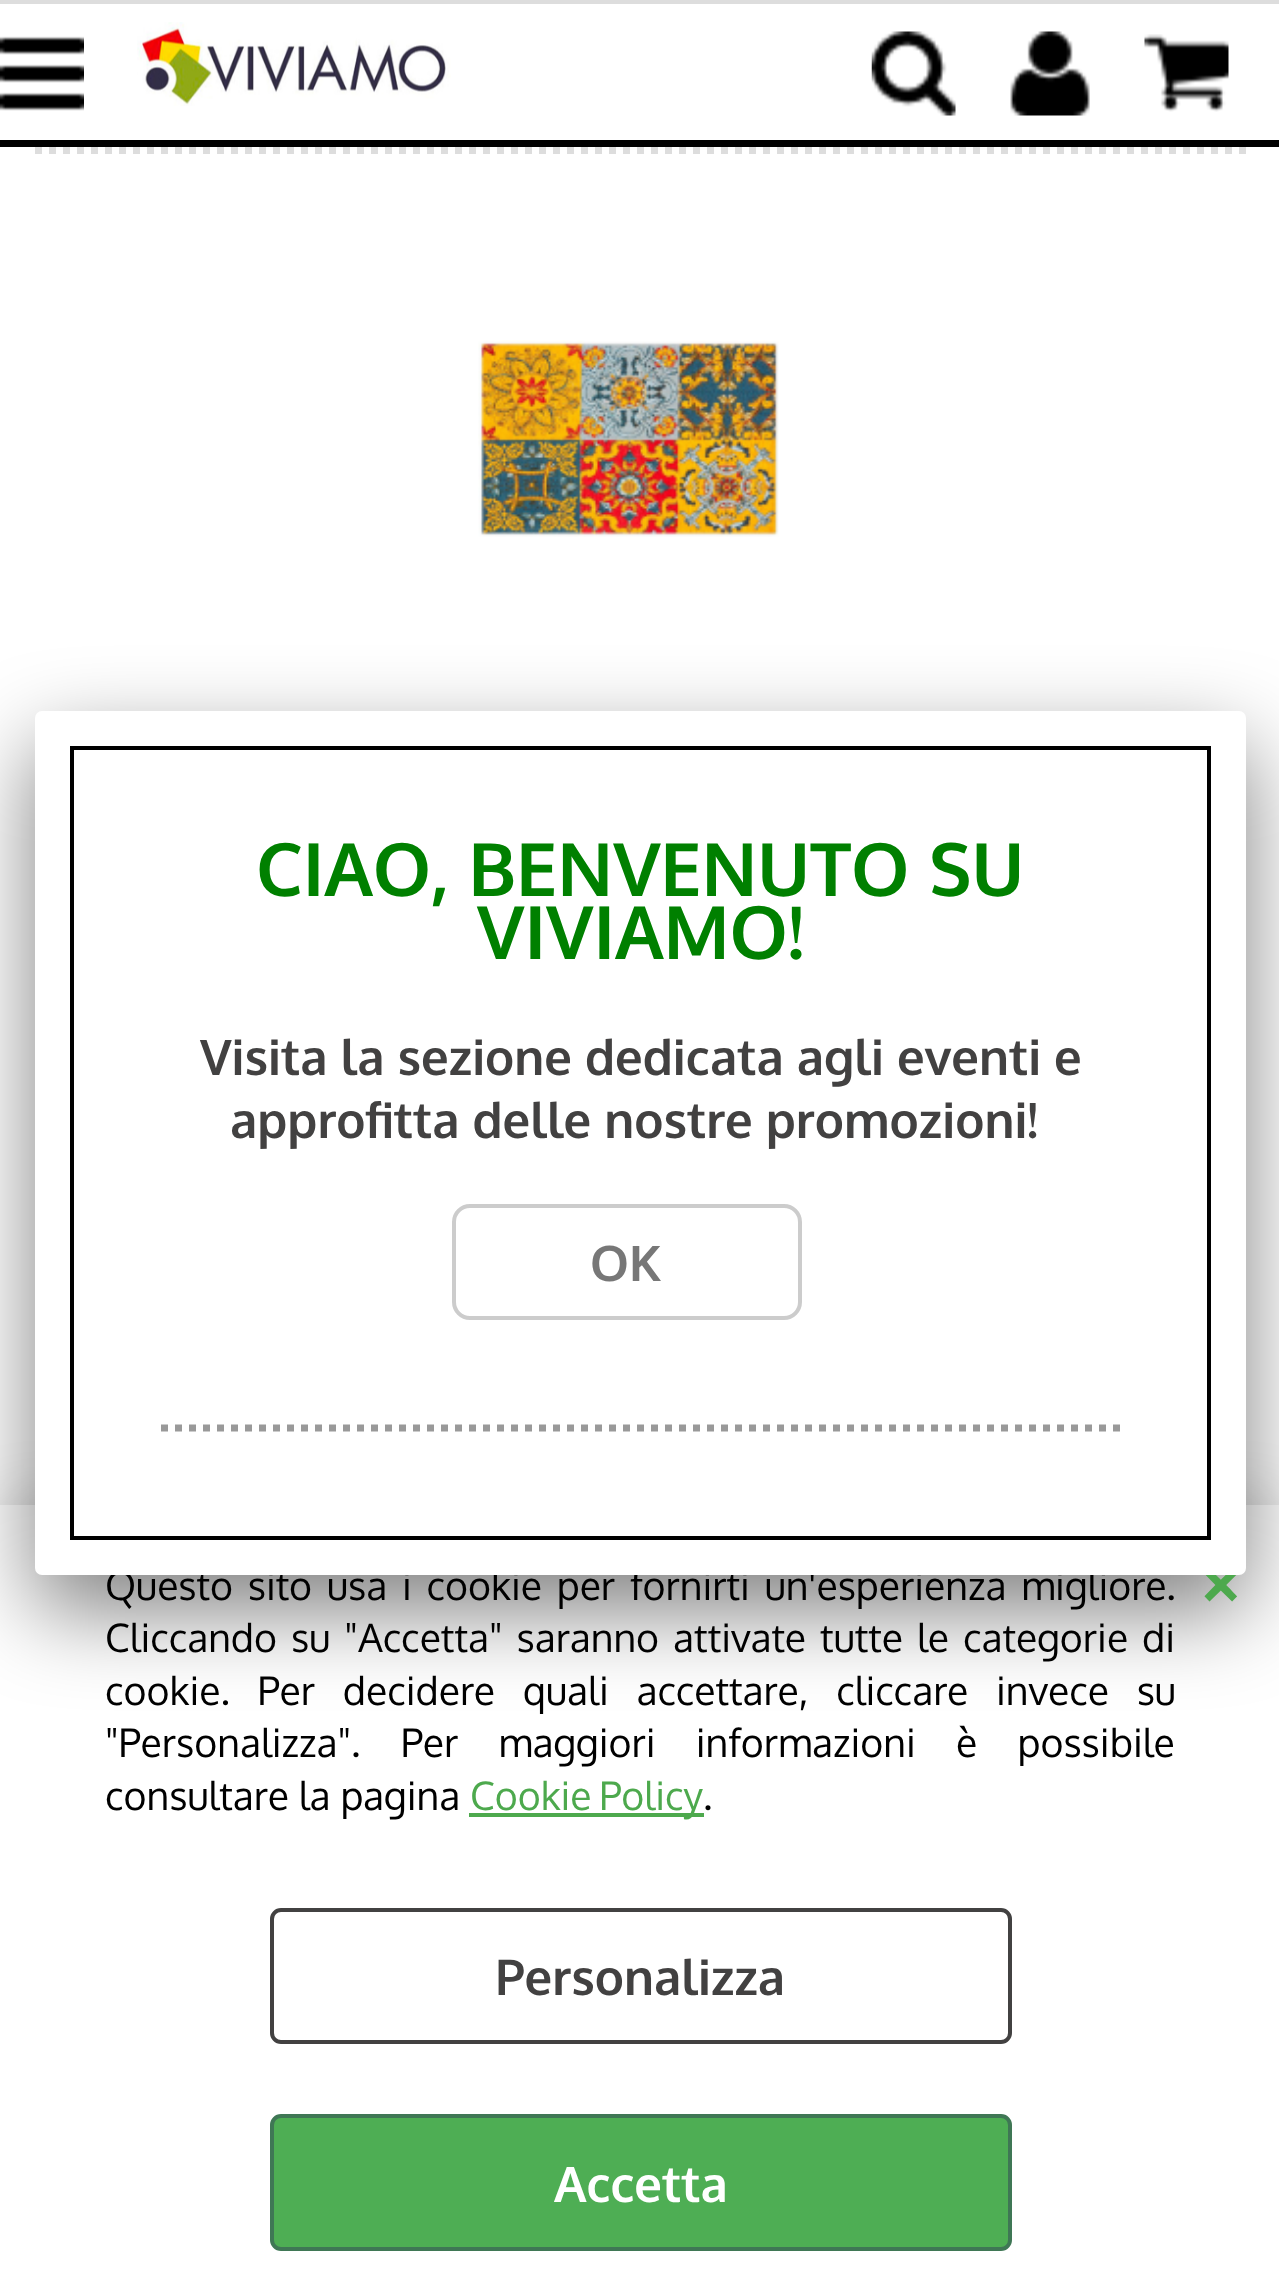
async function draw(canvas) {
  canvas.width = 1279;
  canvas.height = 2284;
  const ctx = canvas.getContext('2d');
  ctx.miterLimit = 4;
  ctx.fontKerning = 'normal';
  function label(s, x, y, font, color) {
    ctx.font = font;
    ctx.fillStyle = color;
    ctx.fillText(s, x, y);
  }
  function rect(x, y, w, h, color) {
    ctx.fillStyle = color;
    ctx.fillRect(x, y, w, h);
  }
  function roundedRect(x, y, w, h, r, color) {
    ctx.fillStyle = color;
    ctx.beginPath();
    ctx.roundRect(x, y, w, h, r);
    ctx.fill();
  }
  async function image(src, x, y, w, h) {
    const img = new Image();
    img.src = src;
    await img.decode();
    ctx.drawImage(img, x, y, w, h);
  }
  let path;

  rect(0, 0, 1279, 2284, '#fff');
  rect(0, 0, 1279, 4, '#ddd');
  rect(0, 140, 1279, 7, '#000');
  await image('assets/img1.png', 0, 36, 84, 75);
  await image('assets/img2.png', 137, 22, 314, 84);
  await image('assets/img3.png', 871, 31, 85, 85);
  await image('assets/img4.png', 1010, 31, 80, 85);
  await image('assets/img5.png', 1144, 34, 85, 78);
  path = new Path2D('M35 150.5H1246');
  ctx.strokeStyle = '#ddd';
  ctx.lineWidth = 7;
  ctx.setLineDash([7, 7]);
  ctx.stroke(path);
  await image('assets/img6.png', 478, 340, 301, 197);
  ctx.fillStyle = '#00000033';
  ctx.filter = 'blur(31.5px)';
  ctx.beginPath();
  ctx.rect(0, 1505, 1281, 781);
  ctx.fill();
  ctx.filter = 'none';
  rect(0, 1505, 1279, 779, '#fff');
  ctx.fillStyle = '#00000080';
  ctx.filter = 'blur(44px)';
  ctx.beginPath();
  ctx.roundRect(35, 746, 1211, 864, 7);
  ctx.fill();
  ctx.filter = 'none';
  ctx.wordSpacing = '5px';
  label('Questo sito usa i cookie per fornirti un\'esperienza migliore.', 105, 1600, '39.2px Oxygen', '#000');
  ctx.wordSpacing = '0px';
  label('×', 1194, 1607, 'bold 77px Oxygen', '#4da94d');
  roundedRect(35, 711, 1211, 864, 7, '#fff');
  ctx.strokeStyle = '#000';
  ctx.lineWidth = 4;
  ctx.setLineDash([]);
  ctx.strokeRect(72, 748, 1137, 790);
  label('CIAO, BENVENUTO SU', 256, 896, 'bold 73.5px Oxygen', '#008000');
  label('VIVIAMO!', 477, 959, 'bold 73.5px Oxygen', '#008000');
  label('Visita la sezione dedicata agli eventi e', 200, 1075, 'bold 49px Oxygen', '#424141');
  label('approfitta delle nostre promozioni!', 230, 1138, 'bold 49px Oxygen', '#424141');
  ctx.beginPath();
  ctx.roundRect(454, 1206, 346, 112, 16);
  ctx.strokeStyle = '#ccc';
  ctx.stroke();
  label('OK', 590, 1281, 'bold 49px Oxygen', '#777');
  path = new Path2D('M161 1428H1120');
  ctx.strokeStyle = '#999';
  ctx.lineWidth = 7;
  ctx.setLineDash([7, 7]);
  ctx.stroke(path);
  ctx.wordSpacing = '4.25px';
  label('Cliccando su "Accetta" saranno attivate tutte le categorie di', 105, 1652, '39.2px Oxygen', '#000');
  ctx.wordSpacing = '18px';
  label('cookie. Per decidere quali accettare, cliccare invece su', 105, 1705, '39.2px Oxygen', '#000');
  ctx.wordSpacing = '30.5px';
  label('"Personalizza". Per maggiori informazioni è possibile', 105, 1757, '39.2px Oxygen', '#000');
  ctx.wordSpacing = '0px';
  label('consultare la pagina', 105, 1810, '39.2px Oxygen', '#000');
  rect(469, 1813, 235, 4, '#4da94d');
  ctx.wordSpacing = '-2px';
  label('Cookie Policy', 470, 1810, '39.2px Oxygen', '#4da94d');
  ctx.wordSpacing = '0px';
  label('.', 703, 1810, '39.2px Oxygen', '#000');
  ctx.beginPath();
  ctx.roundRect(272, 1910, 738, 132, 9);
  ctx.strokeStyle = '#424141';
  ctx.lineWidth = 4;
  ctx.setLineDash([]);
  ctx.stroke();
  label('Personalizza', 495, 1995, 'bold 49px Oxygen', '#424141');
  ctx.fillStyle = '#4eae54';
  ctx.beginPath();
  ctx.roundRect(272, 2116, 738, 133, 9);
  ctx.fill();
  ctx.strokeStyle = '#3f7755';
  ctx.stroke();
  label('Accetta', 554, 2202, 'bold 49px Oxygen', '#fff');
}

draw(document.querySelector('canvas'));
